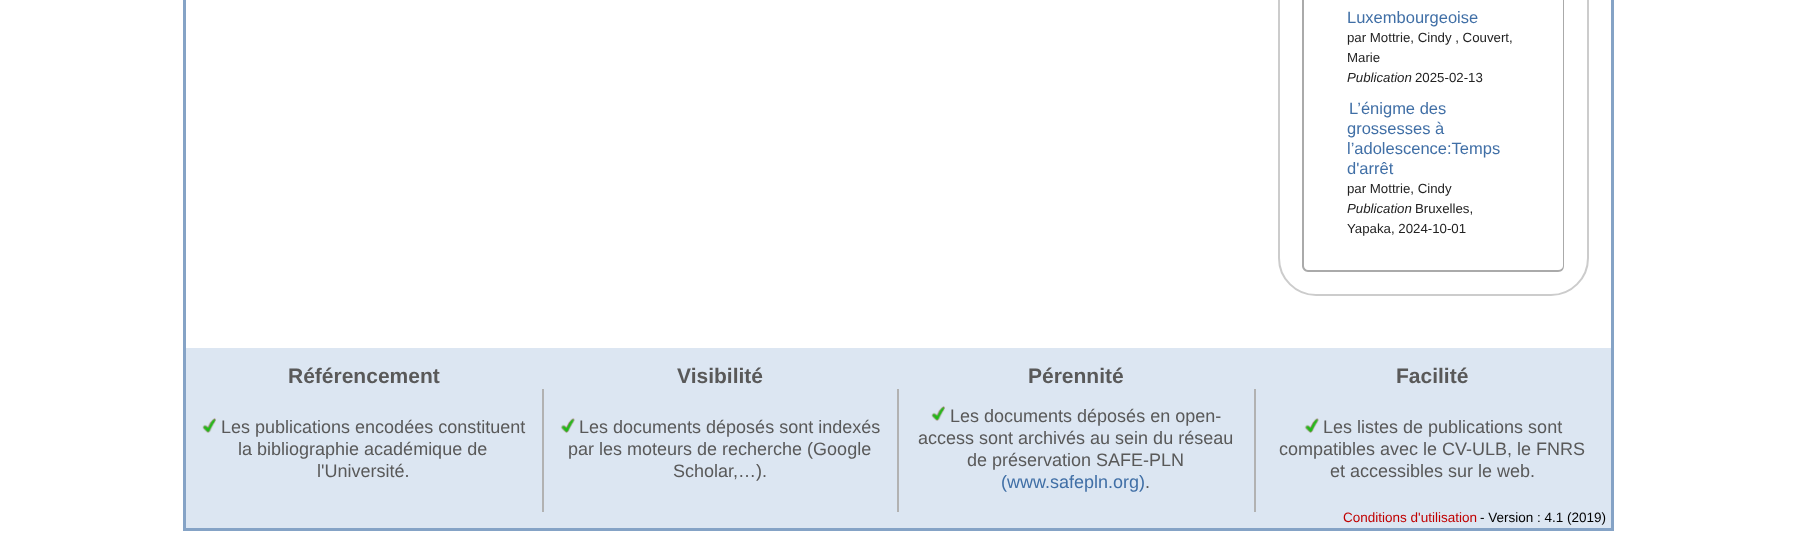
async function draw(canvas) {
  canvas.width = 1795;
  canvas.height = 538;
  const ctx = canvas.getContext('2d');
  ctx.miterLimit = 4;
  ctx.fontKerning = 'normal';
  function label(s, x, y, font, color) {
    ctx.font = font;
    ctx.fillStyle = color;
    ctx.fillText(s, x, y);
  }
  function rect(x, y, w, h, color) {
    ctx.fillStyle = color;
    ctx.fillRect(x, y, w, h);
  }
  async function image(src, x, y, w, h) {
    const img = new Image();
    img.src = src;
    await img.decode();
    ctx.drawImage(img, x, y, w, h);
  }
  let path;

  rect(0, 0, 1795, 538, '#fff');
  rect(183, 0, 1431, 531, '#85a3c6');
  rect(186, 0, 1425, 348, '#fff');
  ctx.beginPath();
  ctx.roundRect(1279, -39, 309, 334, 37);
  ctx.strokeStyle = '#ccc';
  ctx.lineWidth = 2;
  ctx.stroke();
  ctx.fillStyle = '#aaa';
  path = new Path2D('M1302-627H1564V266C1564 269 1562 272 1558 272H1308C1305 272 1302 269 1302 266ZM1304-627H1563V266C1563 268 1561 270 1558 270H1308C1306 270 1304 268 1304 266Z');
  ctx.fill(path, 'evenodd');
  label('Luxembourgeoise', 1347, 23, '16.5px Liberation Sans', '#406fa6');
  label('par Mottrie, Cindy , Couvert,', 1347, 42, '13.25px Liberation Sans', '#222');
  label('Marie', 1347, 62, '13.25px Liberation Sans', '#222');
  label('Publication', 1347, 82, 'italic 13.25px Liberation Sans', '#222');
  label('2025-02-13', 1415, 82, '13.25px Liberation Sans', '#222');
  label('L’énigme des', 1349, 114, '16.5px Liberation Sans', '#406fa6');
  label('grossesses à', 1347, 134, '16.5px Liberation Sans', '#406fa6');
  label('l’adolescence:Temps', 1347, 154, '16.5px Liberation Sans', '#406fa6');
  label('d\'arrêt', 1347, 174, '16.5px Liberation Sans', '#406fa6');
  label('par Mottrie, Cindy', 1347, 193, '13.25px Liberation Sans', '#222');
  label('Publication', 1347, 213, 'italic 13.25px Liberation Sans', '#222');
  label('Bruxelles,', 1415, 213, '13.25px Liberation Sans', '#222');
  label('Yapaka, 2024-10-01', 1347, 233, '13.25px Liberation Sans', '#222');
  rect(186, 348, 1425, 180, '#dce6f2');
  label('Référencement', 288, 383, 'bold 21px Liberation Sans', '#595959');
  label('Visibilité', 677, 383, 'bold 21px Liberation Sans', '#595959');
  label('Pérennité', 1028, 383, 'bold 21px Liberation Sans', '#595959');
  label('Facilité', 1396, 383, 'bold 21px Liberation Sans', '#595959');
  await image('assets/img1.png', 202, 418, 14, 15);
  label('Les publications encodées constituent', 221, 433, '18px Liberation Sans', '#595959');
  label('la bibliographie académique de', 238, 455, '18px Liberation Sans', '#595959');
  label('l\'Université.', 317, 477, '18px Liberation Sans', '#595959');
  rect(542, 389, 2, 123, '#b2b2b2');
  await image('assets/img2.png', 560, 418, 15, 15);
  label('Les documents déposés sont indexés', 579, 433, '18px Liberation Sans', '#595959');
  label('par les moteurs de recherche (Google', 568, 455, '18px Liberation Sans', '#595959');
  label('Scholar,…).', 673, 477, '18px Liberation Sans', '#595959');
  rect(897, 389, 2, 123, '#b2b2b2');
  await image('assets/img3.png', 931, 406, 14, 15);
  label('Les documents déposés en open-', 950, 422, '18px Liberation Sans', '#595959');
  label('access sont archivés au sein du réseau', 918, 444, '18px Liberation Sans', '#595959');
  label('de préservation SAFE-PLN', 967, 466, '18px Liberation Sans', '#595959');
  label('(www.safepln.org)', 1001, 488, '18px Liberation Sans', '#406fa6');
  label('.', 1145, 488, '18px Liberation Sans', '#595959');
  rect(1254, 389, 2, 123, '#b2b2b2');
  await image('assets/img2.png', 1304, 418, 15, 15);
  label('Les listes de publications sont', 1323, 433, '18px Liberation Sans', '#595959');
  label('compatibles avec le CV-ULB, le FNRS', 1279, 455, '18px Liberation Sans', '#595959');
  label('et accessibles sur le web.', 1330, 477, '18px Liberation Sans', '#595959');
  label('Conditions d\'utilisation', 1343, 522, '13.5px Liberation Sans', '#c00000');
  label('- Version : 4.1 (2019)', 1480, 522, '13.5px Liberation Sans', '#000');
}

draw(document.querySelector('canvas'));
